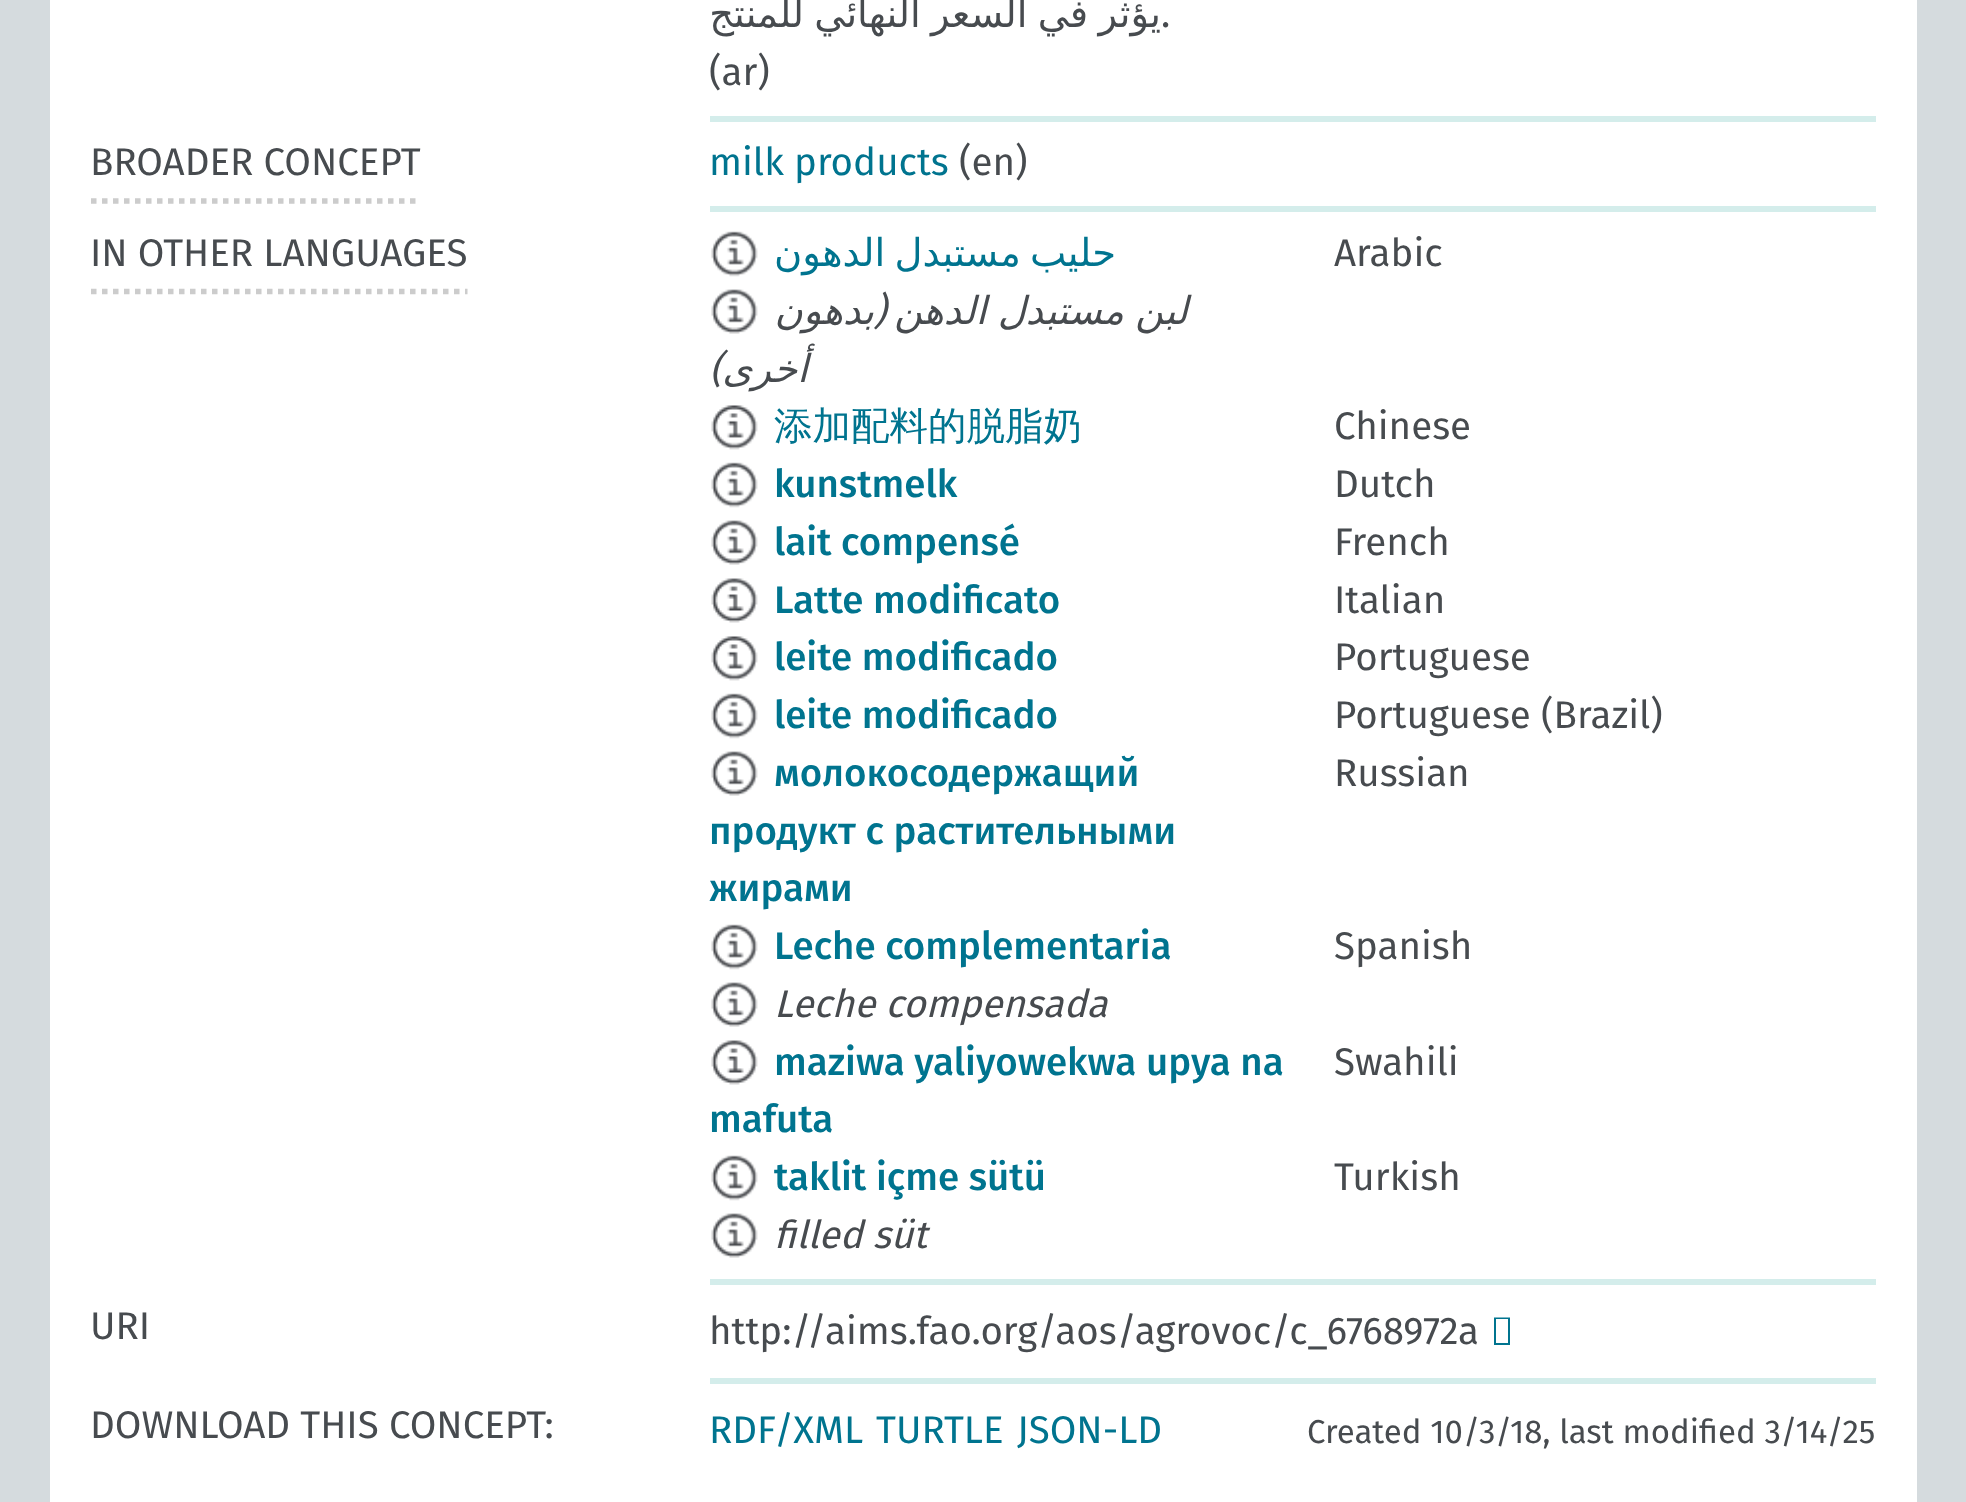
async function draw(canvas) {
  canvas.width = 1966;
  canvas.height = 1502;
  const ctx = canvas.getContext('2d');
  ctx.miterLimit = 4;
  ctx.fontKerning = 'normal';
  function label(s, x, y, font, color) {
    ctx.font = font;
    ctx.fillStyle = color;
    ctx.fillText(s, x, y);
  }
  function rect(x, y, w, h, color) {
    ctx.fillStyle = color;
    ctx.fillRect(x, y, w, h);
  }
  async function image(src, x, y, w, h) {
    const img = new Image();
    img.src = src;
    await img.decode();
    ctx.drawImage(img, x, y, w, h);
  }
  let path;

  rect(0, 0, 1966, 1502, '#d5dbde');
  rect(50, 0, 1867, 1502, '#fff');
  rect(710, 116, 1166, 6, '#d4edeb');
  ctx.wordSpacing = '-2px';
  ctx.direction = 'rtl';
  label('يؤثر في السعر النهائي للمنتج', 1161, 27, '38.5px DejaVu Sans', '#474b4f');
  ctx.wordSpacing = '0px';
  ctx.direction = 'ltr';
  label('.', 1161, 27, '38.5px Fira Sans', '#474b4f');
  label('(ar)', 709, 85, '38.5px Fira Sans', '#474b4f');
  path = new Path2D('M91 201H421');
  ctx.strokeStyle = '#ccc';
  ctx.lineWidth = 5.5;
  ctx.setLineDash([5.5, 5.5]);
  ctx.stroke(path);
  label('BROADER CONCEPT', 90, 175, '38.5px Fira Sans', '#474b4f');
  rect(710, 206, 1166, 6, '#d4edeb');
  label('milk products', 709, 175, '38.5px Fira Sans', '#00748f');
  label('(en)', 959, 175, '38.5px Fira Sans', '#474b4f');
  path = new Path2D('M91 291.5H467.5');
  ctx.stroke(path);
  label('IN OTHER LANGUAGES', 90, 266, '38.5px Fira Sans', '#474b4f');
  rect(710, 1279, 1166, 6, '#d4edeb');
  await image('assets/img1.png', 711, 231, 47, 46);
  ctx.wordSpacing = '-3px';
  ctx.direction = 'rtl';
  label('حليب مستبدل الدهون', 1116, 266, '38.5px DejaVu Sans', '#00748f');
  ctx.wordSpacing = '0px';
  ctx.direction = 'ltr';
  label('Arabic', 1334, 266, '38.5px Fira Sans', '#474b4f');
  await image('assets/img2.png', 711, 289, 47, 45);
  ctx.direction = 'rtl';
  label('بدهون', 874, 324, 'italic 38.5px DejaVu Sans', '#474b4f');
  label('(', 886, 324, 'italic 38.5px Fira Sans', '#474b4f');
  ctx.wordSpacing = '-1px';
  label('لبن مستبدل الدهن', 1188, 324, 'italic 38.5px DejaVu Sans', '#474b4f');
  ctx.wordSpacing = '0px';
  label(')', 722, 382, 'italic 38.5px Fira Sans', '#474b4f');
  label('أخرى', 808, 382, 'italic 38.5px DejaVu Sans', '#474b4f');
  await image('assets/img3.png', 711, 405, 47, 45);
  ctx.direction = 'ltr';
  label('添加配料的脱脂奶', 774, 439, '500 38.5px WenQuanYi Zen Hei', '#00748f');
  label('Chinese', 1334, 439, '38.5px Fira Sans', '#474b4f');
  await image('assets/img1.png', 711, 462, 47, 46);
  label('kunstmelk', 774, 497, '500 38.5px Fira Sans', '#00748f');
  label('Dutch', 1334, 497, '38.5px Fira Sans', '#474b4f');
  await image('assets/img2.png', 711, 520, 47, 45);
  label('lait compensé', 774, 555, '500 38.5px Fira Sans', '#00748f');
  label('French', 1334, 555, '38.5px Fira Sans', '#474b4f');
  await image('assets/img4.png', 711, 578, 47, 45);
  label('Latte modificato', 774, 613, '500 38.5px Fira Sans', '#00748f');
  label('Italian', 1334, 613, '38.5px Fira Sans', '#474b4f');
  await image('assets/img3.png', 711, 636, 47, 45);
  label('leite modificado', 774, 670, '500 38.5px Fira Sans', '#00748f');
  label('Portuguese', 1334, 670, '38.5px Fira Sans', '#474b4f');
  await image('assets/img1.png', 711, 693, 47, 46);
  label('leite modificado', 774, 728, '500 38.5px Fira Sans', '#00748f');
  label('Portuguese (Brazil)', 1334, 728, '38.5px Fira Sans', '#474b4f');
  await image('assets/img2.png', 711, 751, 47, 45);
  label('молокосодержащий', 774, 786, '500 38.5px Fira Sans', '#00748f');
  label('продукт с растительными', 709, 844, '500 38.5px Fira Sans', '#00748f');
  label('жирами', 709, 901, '500 38.5px Fira Sans', '#00748f');
  label('Russian', 1334, 786, '38.5px Fira Sans', '#474b4f');
  await image('assets/img1.png', 711, 924, 47, 46);
  label('Leche complementaria', 774, 959, '500 38.5px Fira Sans', '#00748f');
  label('Spanish', 1334, 959, '38.5px Fira Sans', '#474b4f');
  await image('assets/img2.png', 711, 982, 47, 45);
  label('Leche compensada', 774, 1017, 'italic 38.5px Fira Sans', '#474b4f');
  await image('assets/img4.png', 711, 1040, 47, 45);
  label('maziwa yaliyowekwa upya na', 774, 1075, '500 38.5px Fira Sans', '#00748f');
  label('mafuta', 709, 1132, '500 38.5px Fira Sans', '#00748f');
  label('Swahili', 1334, 1075, '38.5px Fira Sans', '#474b4f');
  await image('assets/img1.png', 711, 1155, 47, 46);
  label('taklit içme sütü', 774, 1190, '500 38.5px Fira Sans', '#00748f');
  label('Turkish', 1334, 1190, '38.5px Fira Sans', '#474b4f');
  await image('assets/img2.png', 711, 1213, 47, 45);
  label('filled süt', 774, 1248, 'italic 38.5px Fira Sans', '#474b4f');
  label('URI', 90, 1339, '38.5px Fira Sans', '#474b4f');
  rect(710, 1378, 1166, 6, '#d4edeb');
  label('http://aims.fao.org/aos/agrovoc/c_6768972a', 709, 1344, '38.5px Fira Sans', '#474b4f');
  ctx.fillStyle = '#00748f';
  path = new Path2D('M1494 1345V1317.5H1510V1345ZM1496 1343H1508V1319H1496Z');
  ctx.fill(path);
  label('DOWNLOAD THIS CONCEPT:', 90, 1438, '38.5px Fira Sans', '#474b4f');
  label('RDF/XML', 709, 1443, '38.5px Fira Sans', '#00748f');
  label('TURTLE', 876, 1443, '38.5px Fira Sans', '#00748f');
  label('JSON-LD', 1017, 1443, '38.5px Fira Sans', '#00748f');
  label('Created 10/3/18, last modified 3/14/25', 1307, 1443, '33px Fira Sans', '#474b4f');
}

draw(document.querySelector('canvas'));
